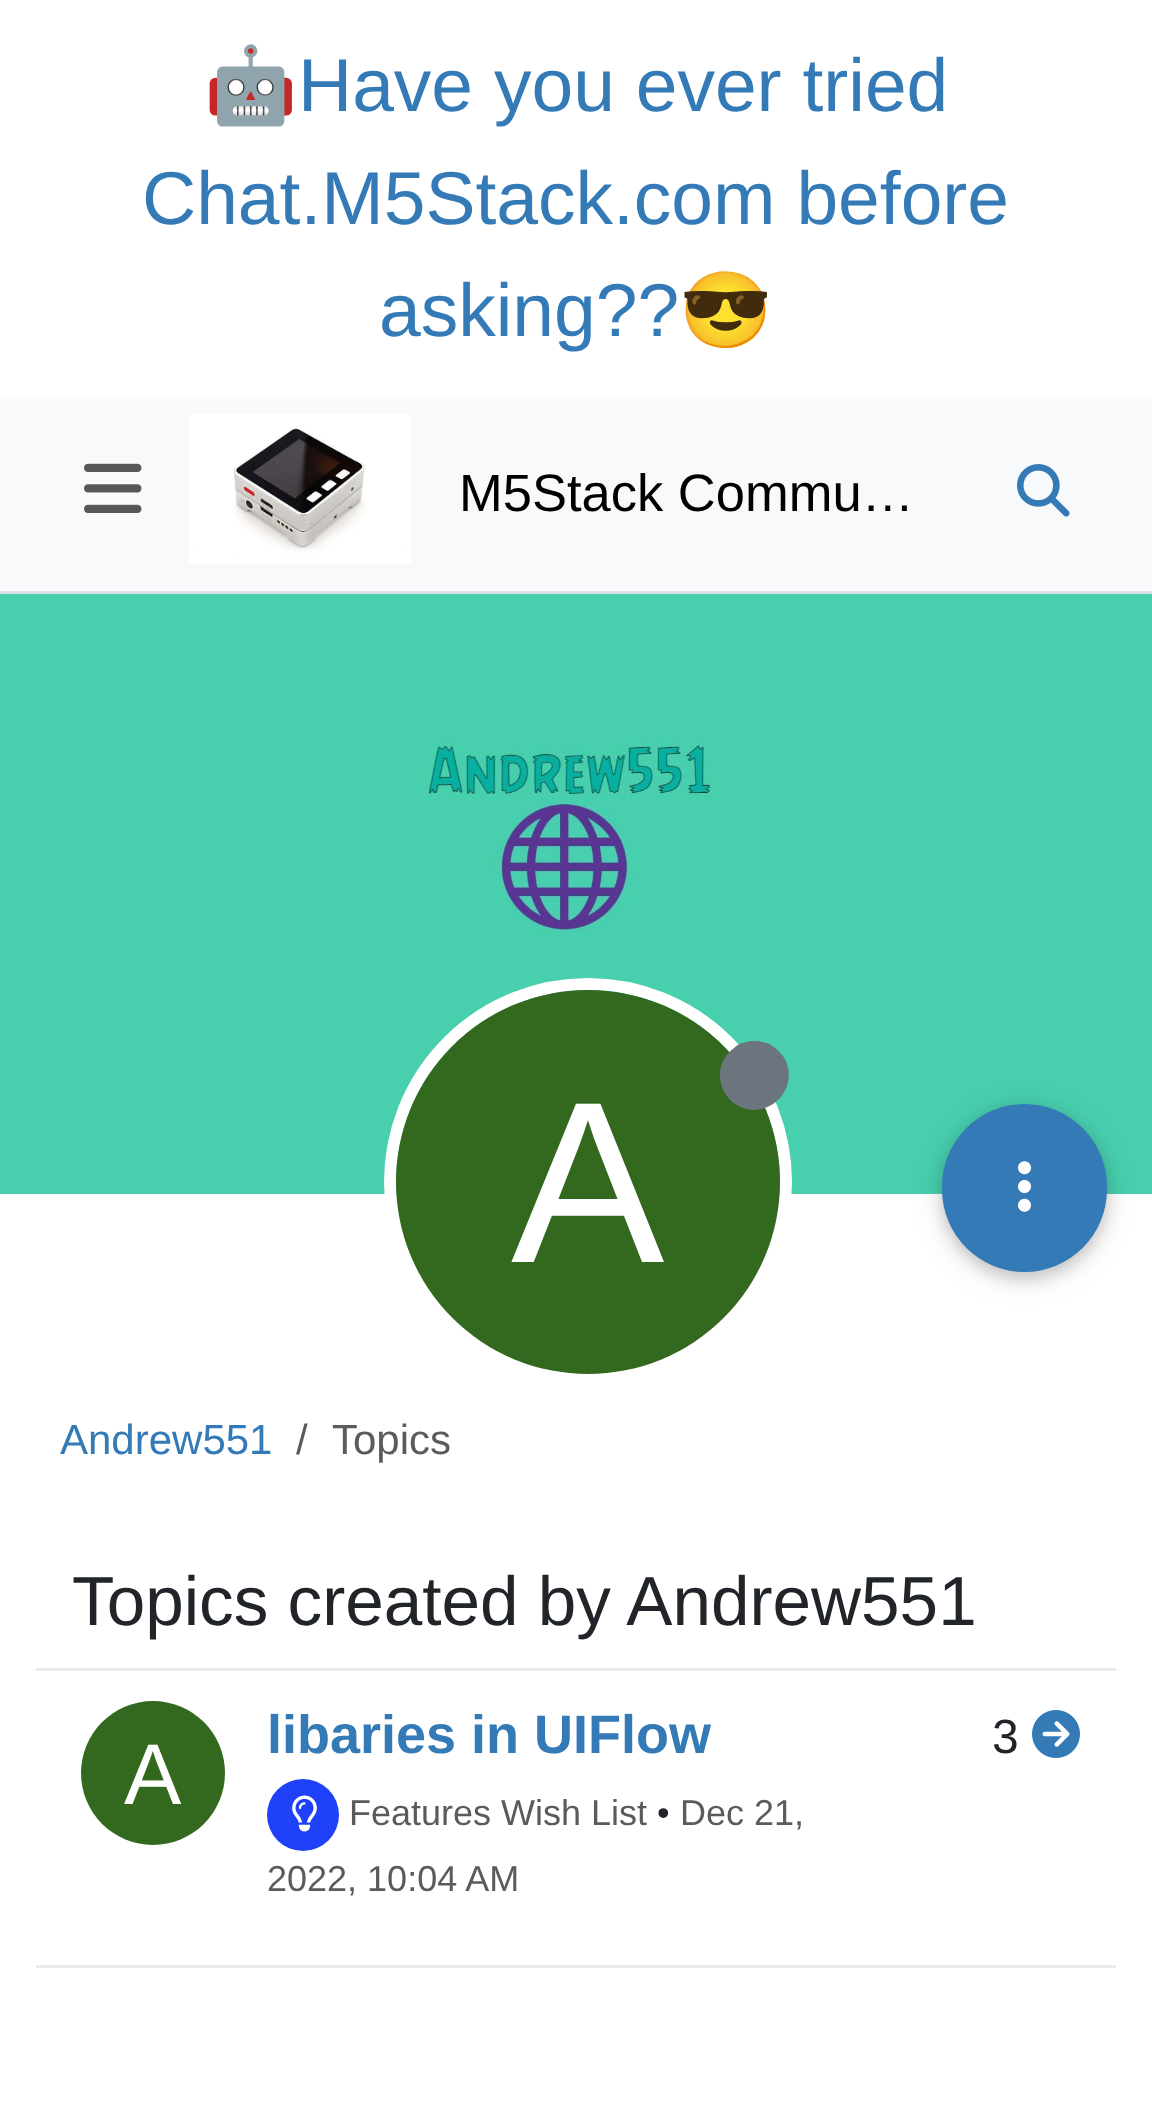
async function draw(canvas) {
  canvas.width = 1152;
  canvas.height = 2122;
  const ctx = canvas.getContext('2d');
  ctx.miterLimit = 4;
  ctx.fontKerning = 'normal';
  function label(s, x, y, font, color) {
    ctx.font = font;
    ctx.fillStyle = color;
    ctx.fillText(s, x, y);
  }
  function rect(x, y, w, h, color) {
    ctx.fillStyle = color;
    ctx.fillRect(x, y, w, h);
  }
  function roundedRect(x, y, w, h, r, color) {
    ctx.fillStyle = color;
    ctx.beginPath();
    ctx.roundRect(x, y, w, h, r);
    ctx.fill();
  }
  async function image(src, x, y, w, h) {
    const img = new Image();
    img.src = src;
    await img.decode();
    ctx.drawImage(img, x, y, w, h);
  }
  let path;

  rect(0, 0, 1152, 2122, '#fff');
  label('🤖', 204, 111, '75px Noto Color Emoji', '#337ab7');
  label('Have you ever tried', 298, 111, '75px Liberation Sans', '#337ab7');
  label('Chat.M5Stack.com before', 142, 224, '75px Liberation Sans', '#337ab7');
  label('asking??', 379, 336, '75px Liberation Sans', '#337ab7');
  label('😎', 679, 336, '75px Noto Color Emoji', '#337ab7');
  rect(0, 399, 1152, 192, '#f8f9fa');
  rect(0, 591, 1152, 3, '#dee2e6');
  await image('assets/img1.png', 84, 463, 58, 50);
  await image('assets/img2.png', 189, 414, 222, 150);
  label('M5Stack Commu…', 459, 511, '52.5px Liberation Sans', '#000');
  await image('assets/img3.png', 1017, 464, 53, 53);
  await image('assets/img4.png', 0, 594, 1152, 600);
  ctx.beginPath();
  ctx.arc(588, 1182, 198, 0, 2 * Math.PI);
  ctx.strokeStyle = '#fff';
  ctx.lineWidth = 12;
  ctx.stroke();
  ctx.fillStyle = '#33691e';
  ctx.beginPath();
  ctx.arc(588, 1182, 192, 0, 2 * Math.PI);
  ctx.fill();
  ctx.fillStyle = '#6c757d';
  path = new Path2D('M754 1110C787 1109 802 1068 775 1048C770 1043 762 1041 754 1041C747 1041 739 1043 734 1048C707 1068 722 1109 754 1110Z');
  ctx.fill(path);
  label('A', 511, 1262, '230px Liberation Sans', '#fff');
  ctx.fillStyle = '#0000001f';
  ctx.filter = 'blur(15px)';
  ctx.beginPath();
  ctx.roundRect(942, 1110, 165, 168, 82.5);
  ctx.fill();
  ctx.filter = 'none';
  ctx.fillStyle = '#00000029';
  ctx.filter = 'blur(7.5px)';
  ctx.beginPath();
  ctx.roundRect(942, 1110, 165, 168, 82.5);
  ctx.fill();
  ctx.filter = 'none';
  roundedRect(942, 1104, 165, 168, 82.5, '#337ab7');
  await image('assets/img5.png', 1017, 1161, 15, 51);
  label('Andrew551', 60, 1454, '42px Liberation Sans', '#337ab7');
  label('/', 296, 1454, '42px Liberation Sans', '#595c5f');
  label('Topics', 332, 1454, '42px Liberation Sans', '#595c5f');
  label('Topics created by Andrew551', 72, 1625, '69.25px Liberation Sans', '#212529');
  rect(36, 1668, 1080, 3, '#e9ecef');
  rect(36, 1965, 1080, 3, '#e9ecef');
  label('libaries in UIFlow', 267, 1753, 'bold 54px Liberation Sans', '#337ab7');
  ctx.fillStyle = '#33691e';
  ctx.beginPath();
  ctx.arc(153, 1773, 72, 0, 2 * Math.PI);
  ctx.fill();
  label('A', 124, 1804, '86px Liberation Sans', '#fff');
  ctx.fillStyle = '#2041fa';
  ctx.beginPath();
  ctx.arc(303, 1815, 36, 0, 2 * Math.PI);
  ctx.fill();
  await image('assets/img6.png', 292, 1795, 25, 37);
  label('Features Wish List', 349, 1825, '36px Liberation Sans', '#595c5f');
  label('•', 657, 1825, '36px Liberation Sans', '#212529');
  label('Dec 21,', 680, 1825, '36px Liberation Sans', '#595c5f');
  label('2022, 10:04 AM', 267, 1891, '36px Liberation Sans', '#595c5f');
  label('3', 992, 1753, '48px Liberation Sans', '#212529');
  await image('assets/img7.png', 1032, 1710, 48, 48);
}

draw(document.querySelector('canvas'));
